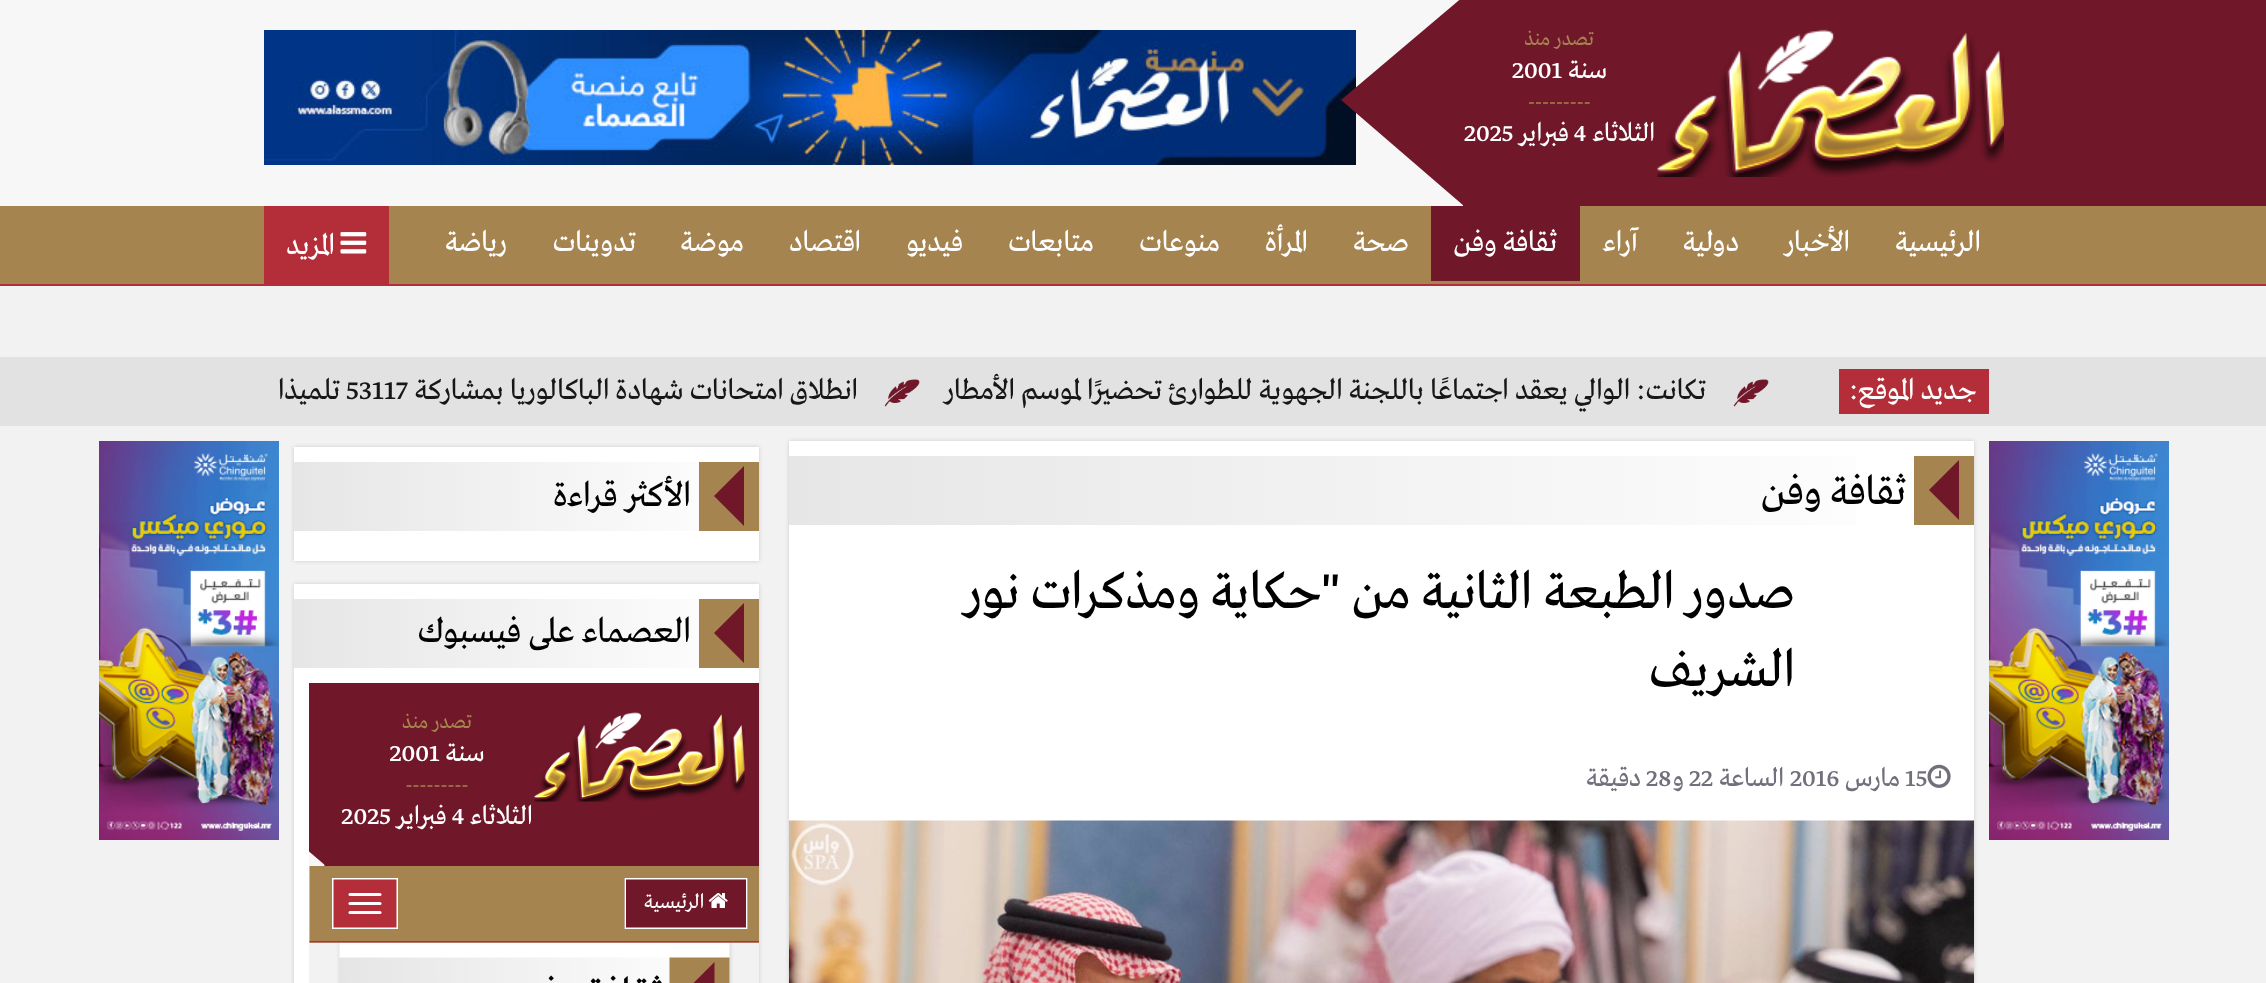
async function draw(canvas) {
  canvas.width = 2266;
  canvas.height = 983;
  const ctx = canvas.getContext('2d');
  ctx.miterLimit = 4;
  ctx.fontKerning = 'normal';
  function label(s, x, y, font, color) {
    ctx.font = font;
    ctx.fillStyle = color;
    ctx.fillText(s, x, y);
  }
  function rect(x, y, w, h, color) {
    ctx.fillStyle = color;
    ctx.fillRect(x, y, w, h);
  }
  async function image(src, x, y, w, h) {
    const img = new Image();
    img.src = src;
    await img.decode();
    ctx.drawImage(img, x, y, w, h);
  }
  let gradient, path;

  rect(0, 0, 2266, 983, '#f2f2f2');
  rect(0, 0, 1463, 206, '#f7f7f7');
  rect(1463, 0, 803, 206, '#701729');
  await image('assets/img1.png', 1657, 29, 347, 148);
  ctx.direction = 'rtl';
  label('تصدر منذ', 1594, 45, '21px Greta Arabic', '#a6844f');
  label('سنة', 1607, 78, '27px Greta Arabic', '#fff');
  ctx.direction = 'ltr';
  label('2001', 1512, 78, '27px Greta Arabic', '#fff');
  label('---------', 1528, 108, '21px Greta Arabic', '#a6844f');
  ctx.direction = 'rtl';
  label('الثلاثاء', 1655, 141, '27px Greta Arabic', '#fff');
  ctx.direction = 'ltr';
  label('4', 1574, 141, '27px Greta Arabic', '#fff');
  ctx.direction = 'rtl';
  label('فبراير', 1569, 141, '27px Greta Arabic', '#fff');
  ctx.direction = 'ltr';
  label('2025', 1464, 141, '27px Greta Arabic', '#fff');
  await image('assets/img2.png', 264, 30, 1092, 135);
  ctx.fillStyle = '#701729';
  path = new Path2D('M1464-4V206L1341 100Z');
  ctx.fill(path);
  rect(0, 206, 2266, 78, '#a6844f');
  rect(0, 284, 2266, 2, '#b32e38');
  ctx.direction = 'rtl';
  label('الرئيسية', 1981, 251, '30px Greta Arabic', '#fff');
  label('الأخبار', 1850, 251, '30px Greta Arabic', '#fff');
  label('دولية', 1739, 251, '30px Greta Arabic', '#fff');
  label('آراء', 1638, 251, '30px Greta Arabic', '#fff');
  rect(1431, 206, 149, 75, '#701729');
  label('ثقافة وفن', 1557, 251, '30px Greta Arabic', '#fff');
  label('صحة', 1409, 251, '30px Greta Arabic', '#fff');
  label('المرأة', 1308, 251, '30px Greta Arabic', '#fff');
  label('منوعات', 1220, 251, '30px Greta Arabic', '#fff');
  label('متابعات', 1094, 251, '30px Greta Arabic', '#fff');
  label('فيديو', 963, 251, '30px Greta Arabic', '#fff');
  label('اقتصاد', 861, 251, '30px Greta Arabic', '#fff');
  label('موضة', 744, 251, '30px Greta Arabic', '#fff');
  label('تدوينات', 636, 251, '30px Greta Arabic', '#fff');
  label('رياضة', 507, 251, '30px Greta Arabic', '#fff');
  rect(264, 206, 125, 78, '#b32e38');
  await image('assets/img3.png', 340, 232, 27, 22);
  label('المزيد', 335, 254, '30px Greta Arabic', '#fff');
  rect(0, 357, 2266, 69, '#e2e2e2');
  rect(1839, 369, 150, 45, '#b32e38');
  label('جديد الموقع:', 1977, 399, '30px Greta Arabic', '#fff');
  await image('assets/img4.png', 1733, 379, 36, 28);
  label('تكانت: الوالي يعقد اجتماعًا باللجنة الجهوية للطوارئ تحضيرًا لموسم الأمطار', 1706, 399, '30px Greta Arabic', '#171717');
  await image('assets/img5.png', 884, 379, 36, 28);
  label('انطلاق امتحانات شهادة الباكالوريا بمشاركة', 858, 399, '30px Greta Arabic', '#171717');
  ctx.direction = 'ltr';
  label('53117', 346, 399, '30px Greta Arabic', '#171717');
  ctx.direction = 'rtl';
  label('تلميذا', 340, 399, '30px Greta Arabic', '#171717');
  await image('assets/img6.png', 1989, 441, 180, 399);
  await image('assets/img7.png', 99, 441, 180, 399);
  ctx.fillStyle = '#00000026';
  ctx.filter = 'blur(2px)';
  ctx.beginPath();
  ctx.rect(789, 441, 1185, 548);
  ctx.fill();
  ctx.filter = 'none';
  rect(789, 441, 1185, 380, '#fff');
  gradient = ctx.createLinearGradient(789, 491, 1974, 491);
  gradient.addColorStop(0, '#e6e6e6');
  gradient.addColorStop(1, '#fff');
  ctx.fillStyle = gradient;
  ctx.fillRect(789, 456, 1067, 69);
  rect(1914, 456, 60, 69, '#a6844f');
  ctx.fillStyle = '#701729';
  path = new Path2D('M1959 460V520L1929 490Z');
  ctx.fill(path);
  label('ثقافة وفن', 1906, 504, '42px Greta Arabic', '#000');
  label('صدور الطبعة الثانية من "حكاية ومذكرات نور', 1795, 608, '54px Greta Arabic', '#000');
  label('الشريف', 1795, 686, '54px Greta Arabic', '#000');
  await image('assets/img8.png', 1927, 764, 24, 24);
  ctx.direction = 'ltr';
  label('15', 1905, 786, '27px Greta Arabic', '#70707d');
  ctx.direction = 'rtl';
  label('مارس', 1900, 786, '27px Greta Arabic', '#70707d');
  ctx.direction = 'ltr';
  label('2016', 1790, 786, '27px Greta Arabic', '#70707d');
  ctx.direction = 'rtl';
  label('الساعة', 1784, 786, '27px Greta Arabic', '#70707d');
  ctx.direction = 'ltr';
  label('22', 1689, 786, '27px Greta Arabic', '#70707d');
  ctx.direction = 'rtl';
  label('و', 1684, 786, '27px Greta Arabic', '#70707d');
  ctx.direction = 'ltr';
  label('28', 1646, 786, '27px Greta Arabic', '#70707d');
  ctx.direction = 'rtl';
  label('دقيقة', 1641, 786, '27px Greta Arabic', '#70707d');
  await image('assets/img9.png', 789, 820, 1185, 163);
  ctx.fillStyle = '#00000026';
  ctx.filter = 'blur(2px)';
  ctx.beginPath();
  ctx.rect(294, 447, 465, 114);
  ctx.fill();
  ctx.filter = 'none';
  rect(294, 447, 465, 114, '#fff');
  gradient = ctx.createLinearGradient(294, 497, 759, 497);
  gradient.addColorStop(0, '#e6e6e6');
  gradient.addColorStop(1, '#fff');
  ctx.fillStyle = gradient;
  ctx.fillRect(294, 462, 405, 69);
  rect(699, 462, 60, 69, '#a6844f');
  ctx.fillStyle = '#701729';
  path = new Path2D('M744 466V526L714 496Z');
  ctx.fill(path);
  label('الأكثر قراءة', 691, 506, '36px Greta Arabic', '#000');
  ctx.fillStyle = '#00000026';
  ctx.filter = 'blur(2px)';
  ctx.beginPath();
  ctx.rect(294, 584, 465, 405);
  ctx.fill();
  ctx.filter = 'none';
  rect(294, 584, 465, 399, '#fff');
  gradient = ctx.createLinearGradient(294, 633, 759, 633);
  gradient.addColorStop(0, '#e6e6e6');
  gradient.addColorStop(1, '#fff');
  ctx.fillStyle = gradient;
  ctx.fillRect(294, 599, 405, 69);
  rect(699, 599, 60, 69, '#a6844f');
  ctx.fillStyle = '#701729';
  path = new Path2D('M744 603V663L714 633Z');
  ctx.fill(path);
  label('العصماء على فيسبوك', 691, 642, '36px Greta Arabic', '#000');
  await image('assets/img10.png', 309, 683, 450, 300);
}

draw(document.querySelector('canvas'));
